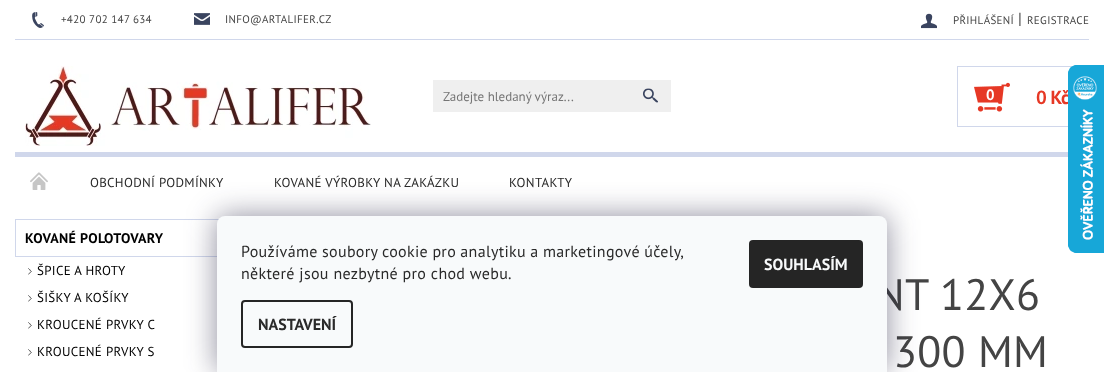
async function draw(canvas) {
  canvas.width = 1104;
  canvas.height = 372;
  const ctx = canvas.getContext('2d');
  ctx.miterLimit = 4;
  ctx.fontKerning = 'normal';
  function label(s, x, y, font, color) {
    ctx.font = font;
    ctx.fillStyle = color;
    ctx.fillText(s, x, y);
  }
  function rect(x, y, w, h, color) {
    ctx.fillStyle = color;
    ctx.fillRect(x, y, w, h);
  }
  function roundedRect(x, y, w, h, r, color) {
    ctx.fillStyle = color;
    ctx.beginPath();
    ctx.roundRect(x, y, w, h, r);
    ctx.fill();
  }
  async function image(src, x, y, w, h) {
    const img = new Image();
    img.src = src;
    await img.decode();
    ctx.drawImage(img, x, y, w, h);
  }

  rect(0, 0, 1104, 372, '#fff');
  rect(15, 39, 1074, 1, '#d0d7eb');
  await image('assets/img1.png', 32, 12, 12, 16);
  ctx.letterSpacing = '0.32px';
  label('+420 702 147 634', 61, 23, '11px PT Sans', '#444');
  await image('assets/img2.png', 194, 13, 16, 12);
  label('INFO@ARTALIFER.CZ', 225, 23, '11px PT Sans', '#444');
  await image('assets/img3.png', 921, 13, 16, 16);
  label('PŘIHLÁŠENÍ', 953, 24, '11px PT Sans', '#444');
  label('|', 1018, 24, '16px PT Sans', '#444');
  label('REGISTRACE', 1027, 24, '11px PT Sans', '#444');
  await image('assets/img4.png', 25, 66, 346, 80);
  rect(433, 80, 238, 32, '#efefef');
  ctx.letterSpacing = '0px';
  label('Zadejte hledaný výraz...', 443, 101, '13px PT Sans', '#757575');
  rect(643, 88, 15, 15, '#3a445f');
  await image('assets/img5.png', 643, 87, 16, 17);
  ctx.strokeStyle = '#d0d7eb';
  ctx.strokeRect(957.5, 66.5, 131, 60);
  await image('assets/img6.png', 974, 82, 36, 30);
  ctx.letterSpacing = '-0.5px';
  label('0', 986, 100, 'bold 15px PT Sans', '#fff');
  label('0 Kč', 1036, 104, 'bold 19px PT Sans', '#e63825');
  rect(15, 152, 1053, 5, '#d0d7eb');
  await image('assets/img7.png', 30, 172, 18, 18);
  ctx.letterSpacing = '0.32px';
  label('OBCHODNÍ PODMÍNKY', 90, 187, '13px PT Sans', '#2a2a2a');
  label('KOVANÉ VÝROBKY NA ZAKÁZKU', 274, 187, '13px PT Sans', '#2a2a2a');
  label('KONTAKTY', 509, 187, '13px PT Sans', '#2a2a2a');
  ctx.strokeRect(15.5, 219.5, 245, 37);
  label('KOVANÉ POLOTOVARY', 25, 243, 'bold 14px PT Sans', '#000');
  await image('assets/img8.png', 28, 268, 4, 7);
  label('ŠPICE A HROTY', 37, 275, '13px PT Sans', '#000');
  await image('assets/img8.png', 28, 295, 4, 7);
  label('ŠIŠKY A KOŠÍKY', 37, 302, '13px PT Sans', '#000');
  await image('assets/img8.png', 28, 322, 4, 7);
  label('KROUCENÉ PRVKY C', 37, 329, '13px PT Sans', '#000');
  await image('assets/img8.png', 28, 349, 4, 7);
  label('KROUCENÉ PRVKY S', 37, 356, '13px PT Sans', '#000');
  label('NT 12X6', 875, 310, '44px PT Sans', '#444');
  label('300 MM', 893, 367, '44px PT Sans', '#444');
  await image('assets/img9.png', 1068, 65, 36, 188);
  ctx.fillStyle = '#1b193980';
  ctx.filter = 'blur(15px)';
  ctx.beginPath();
  ctx.roundRect(217, 216, 670, 156, 8);
  ctx.fill();
  ctx.filter = 'none';
  ctx.fillStyle = '#f8fafb';
  ctx.beginPath();
  ctx.roundRect(217, 216, 670, 156, [8, 8, 0, 0]);
  ctx.fill();
  ctx.wordSpacing = '-0.25px';
  label('Používáme soubory cookie pro analytiku a marketingové účely,', 241, 257, '16px PT Sans', '#2a2a2a');
  ctx.wordSpacing = '0px';
  label('některé jsou nezbytné pro chod webu.', 241, 279, '16px PT Sans', '#2a2a2a');
  ctx.beginPath();
  ctx.roundRect(242, 301, 110, 46, 3);
  ctx.strokeStyle = '#252525';
  ctx.lineWidth = 2;
  ctx.stroke();
  ctx.letterSpacing = '0px';
  label('NASTAVENÍ', 258, 330, 'bold 16px PT Sans', '#2a2a2a');
  roundedRect(749, 240, 114, 48, 4, '#252525');
  label('SOUHLASÍM', 764, 270, 'bold 16px PT Sans', '#f8fafb');
}

draw(document.querySelector('canvas'));
